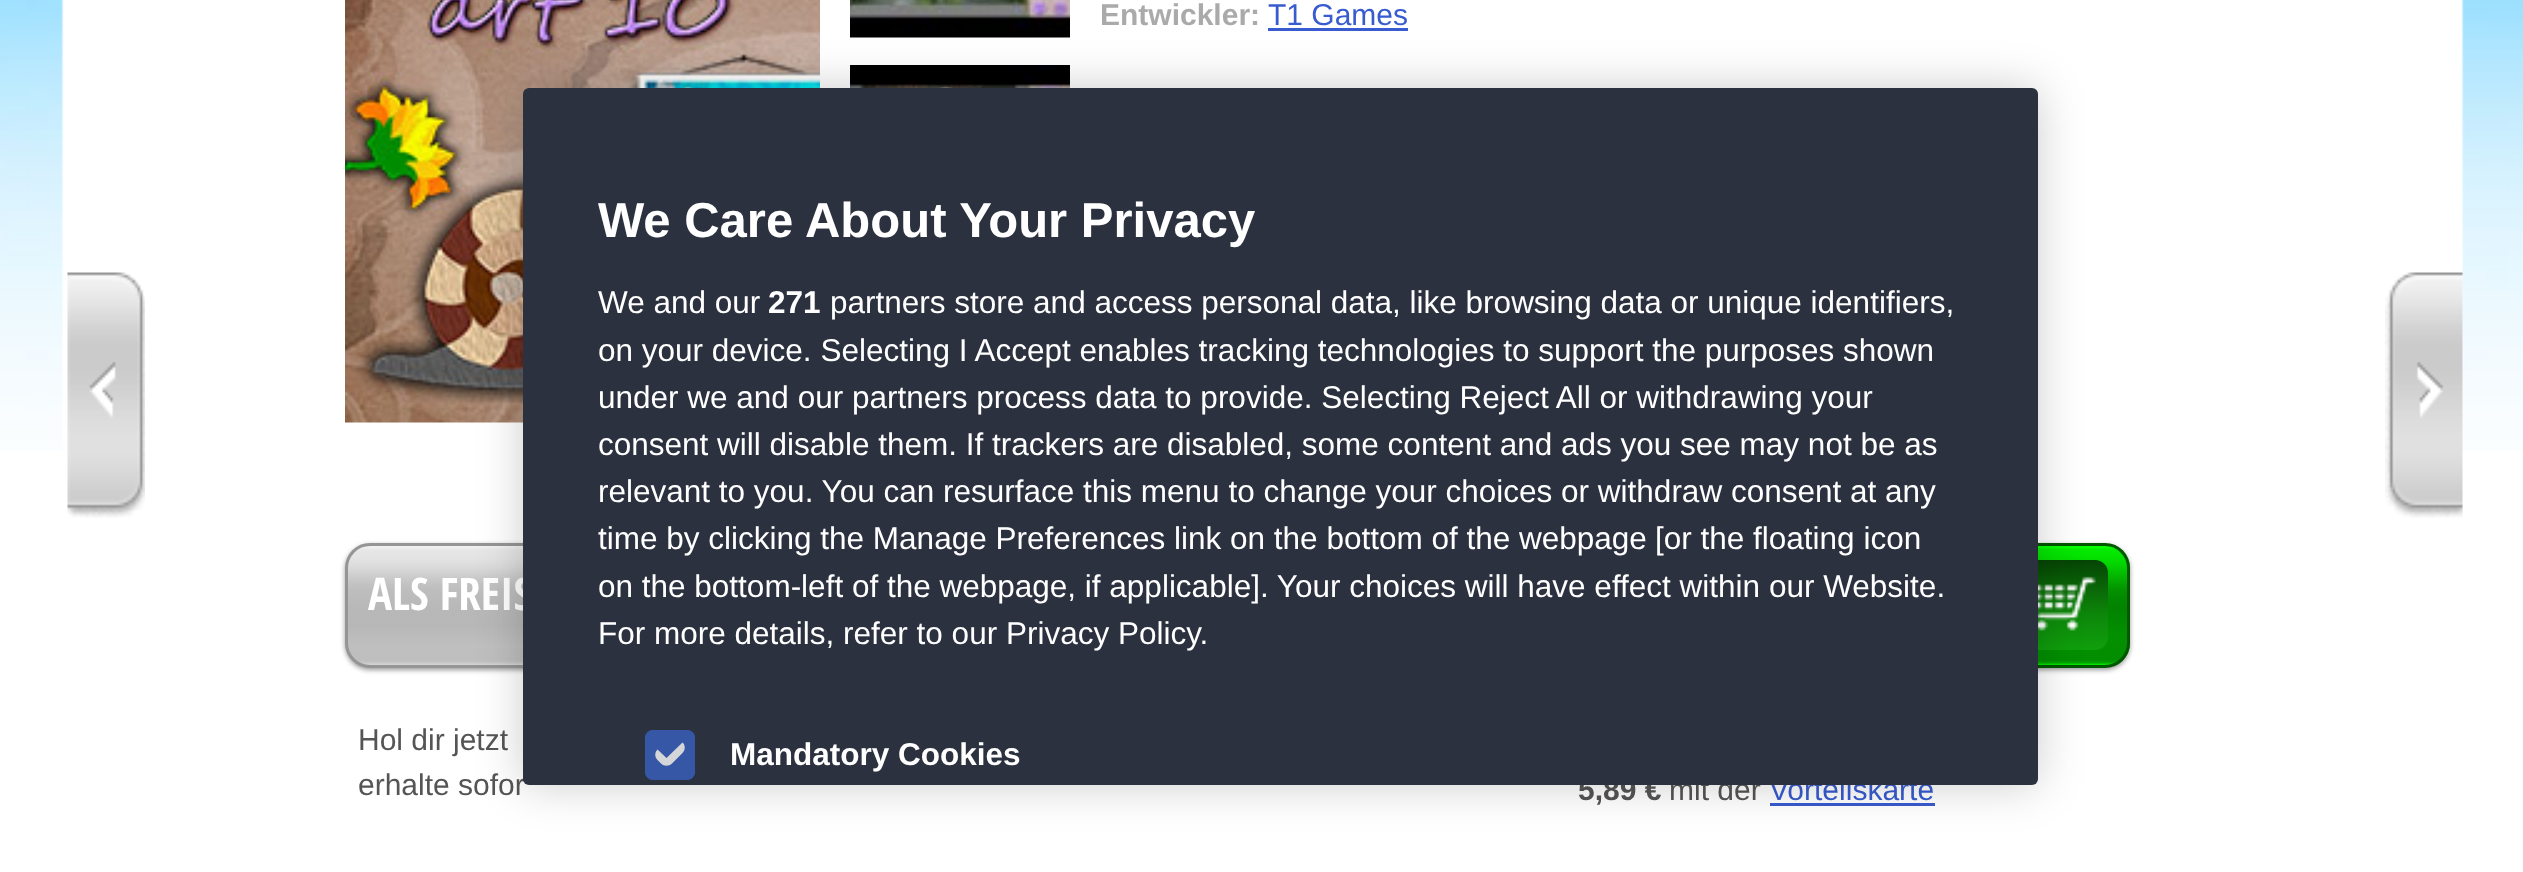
async function draw(canvas) {
  canvas.width = 2523;
  canvas.height = 872;
  const ctx = canvas.getContext('2d');
  ctx.miterLimit = 4;
  ctx.fontKerning = 'normal';
  function label(s, x, y, font, color) {
    ctx.font = font;
    ctx.fillStyle = color;
    ctx.fillText(s, x, y);
  }
  function rect(x, y, w, h, color) {
    ctx.fillStyle = color;
    ctx.fillRect(x, y, w, h);
  }
  function roundedRect(x, y, w, h, r, color) {
    ctx.fillStyle = color;
    ctx.beginPath();
    ctx.roundRect(x, y, w, h, r);
    ctx.fill();
  }
  async function image(src, x, y, w, h) {
    const img = new Image();
    img.src = src;
    await img.decode();
    ctx.drawImage(img, x, y, w, h);
  }
  let gradient, path;

  rect(0, 0, 2523, 872, '#fff');
  await image('assets/img1.png', 0, 0, 2523, 450);
  await image('assets/img2.png', 61, 0, 2403, 450);
  await image('assets/img3.png', 345, 0, 475, 423);
  await image('assets/img4.png', 850, 0, 220, 38);
  await image('assets/img5.png', 850, 65, 220, 23);
  label('Entwickler:', 1100, 25, 'bold 30px Liberation Sans', '#aaa');
  label('T1 Games', 1268, 25, '30px Liberation Sans', '#385ccf');
  rect(1268, 28, 140, 3, '#385ccf');
  await image('assets/img6.png', 67, 272, 78, 246);
  await image('assets/img7.png', 2385, 272, 78, 246);
  ctx.fillStyle = '#00000066';
  ctx.filter = 'blur(2.5px)';
  ctx.beginPath();
  ctx.roundRect(345, 545, 565, 125, 25);
  ctx.fill();
  ctx.filter = 'none';
  ctx.save();
  ctx.beginPath();
  ctx.roundRect(345, 543, 565, 125, 25);
  ctx.clip();
  gradient = ctx.createLinearGradient(628, 545, 628, 665);
  gradient.addColorStop(0, '#f1f1f1');
  gradient.addColorStop(0.02, '#efefef');
  gradient.addColorStop(0.04, '#e7e7e7');
  gradient.addColorStop(0.1, '#e4e4e4');
  gradient.addColorStop(0.16, '#dedede');
  gradient.addColorStop(0.2, '#d8d8d8');
  gradient.addColorStop(0.27, '#cbcbcb');
  gradient.addColorStop(0.33, '#c2c2c2');
  gradient.addColorStop(0.37, '#bebebe');
  gradient.addColorStop(0.53, '#b8b8b8');
  gradient.addColorStop(0.67, '#b7b7b7');
  gradient.addColorStop(0.84, '#bfbfbf');
  gradient.addColorStop(0.96, '#bebebe');
  gradient.addColorStop(0.98, '#c6c6c6');
  gradient.addColorStop(1, '#d6d6d6');
  ctx.fillStyle = gradient;
  ctx.fillRect(345, 545, 178, 120);
  ctx.restore();
  ctx.beginPath();
  ctx.roundRect(346.5, 544.5, 562, 122, 23.5);
  ctx.strokeStyle = '#959595';
  ctx.lineWidth = 3;
  ctx.stroke();
  label('ALS FREIS', 368, 610, 'bold 45px Open Sans Condensed', '#fff');
  label('Hol dir jetzt', 358, 750, '30px Liberation Sans', '#555');
  label('erhalte sofor', 358, 795, '30px Liberation Sans', '#555');
  ctx.fillStyle = '#00000066';
  ctx.filter = 'blur(2.5px)';
  ctx.beginPath();
  ctx.roundRect(1565, 545, 565, 125, 25);
  ctx.fill();
  ctx.filter = 'none';
  ctx.save();
  ctx.beginPath();
  ctx.roundRect(1565, 543, 565, 125, 25);
  ctx.clip();
  gradient = ctx.createLinearGradient(1848, 545, 1848, 665);
  gradient.addColorStop(0, '#05ff00');
  gradient.addColorStop(0.02, '#05ff00');
  gradient.addColorStop(0.04, '#04e900');
  gradient.addColorStop(0.1, '#04e200');
  gradient.addColorStop(0.16, '#04d400');
  gradient.addColorStop(0.37, '#039300');
  gradient.addColorStop(0.45, '#038700');
  gradient.addColorStop(0.53, '#028300');
  gradient.addColorStop(0.76, '#039000');
  gradient.addColorStop(0.96, '#038d00');
  gradient.addColorStop(0.98, '#03a300');
  gradient.addColorStop(1, '#05f100');
  ctx.fillStyle = gradient;
  ctx.fillRect(2038, 545, 92, 120);
  ctx.restore();
  ctx.beginPath();
  ctx.roundRect(1566.5, 544.5, 562, 122, 23.5);
  ctx.strokeStyle = '#025600';
  ctx.stroke();
  gradient = ctx.createLinearGradient(2064, 560, 2064, 650);
  gradient.addColorStop(0, '#064405');
  gradient.addColorStop(0.6, '#0d860a');
  gradient.addColorStop(1, '#109f0c');
  ctx.fillStyle = gradient;
  ctx.beginPath();
  ctx.roundRect(2020, 560, 88, 90, 13);
  ctx.fill();
  await image('assets/img8.png', 2038, 576, 58, 55);
  label('5,89 €', 1578, 800, 'bold 30px Liberation Sans', '#555');
  label('mit der', 1669, 800, '30px Liberation Sans', '#555');
  label('Vorteilskarte', 1769, 800, '30px Liberation Sans', '#385ccf');
  rect(1770, 803, 165, 3, '#385ccf');
  ctx.fillStyle = '#00000033';
  ctx.filter = 'blur(22.5px)';
  ctx.beginPath();
  ctx.roundRect(523, 88, 1515, 697, 6);
  ctx.fill();
  ctx.filter = 'none';
  roundedRect(523, 88, 1515, 697, 6, '#2c313f');
  label('We Care About Your Privacy', 598, 237, 'bold 49px Liberation Sans', '#fff');
  label('We and our', 598, 313, '31.5px Liberation Sans', '#fff');
  label('271', 768, 313, 'bold 31.5px Liberation Sans', '#fff');
  label('partners store and access personal data, like browsing data or unique identifiers,', 830, 313, '31.5px Liberation Sans', '#fff');
  label('on your device. Selecting I Accept enables tracking technologies to support the purposes shown', 598, 361, '31.5px Liberation Sans', '#fff');
  label('under we and our partners process data to provide. Selecting Reject All or withdrawing your', 598, 408, '31.5px Liberation Sans', '#fff');
  label('consent will disable them. If trackers are disabled, some content and ads you see may not be as', 598, 455, '31.5px Liberation Sans', '#fff');
  label('relevant to you. You can resurface this menu to change your choices or withdraw consent at any', 598, 502, '31.5px Liberation Sans', '#fff');
  label('time by clicking the Manage Preferences link on the bottom of the webpage', 598, 549, '31.5px Liberation Sans', '#fff');
  label('[or the floating icon', 1655, 549, '31.5px Liberation Sans', '#fff');
  label('on the bottom-left of the webpage, if applicable]. Your choices will have effect within our Website.', 598, 597, '31.5px Liberation Sans', '#fff');
  label('For more details, refer to our Privacy Policy.', 598, 644, '31.5px Liberation Sans', '#fff');
  roundedRect(645, 730, 50, 50, 8, '#3657a5');
  path = new Path2D('M653 730H687C691 730 695 734 695 738V772C695 776 691 780 687 780H653C649 780 645 776 645 772V738C645 734 649 730 653 730Z');
  ctx.fill(path);
  ctx.fillStyle = '#d5d6d9';
  path = new Path2D('M657.5 749.5L668 738.5C671 736 676 736 679 738.5L682.5 742.5C685.5 745 685.5 750 682.5 753L672 763.5C669 766.5 664 766.5 661 763.5L657.5 760C654.5 757 654.5 752.5 657.5 749.5ZM657.5 749.5L668 738.5C671 736 676 736 679 738.5L682.5 742.5L666.5 758Z');
  ctx.fill(path, 'evenodd');
  label('Mandatory Cookies', 730, 765, 'bold 31.5px Liberation Sans', '#fff');
}

draw(document.querySelector('canvas'));
